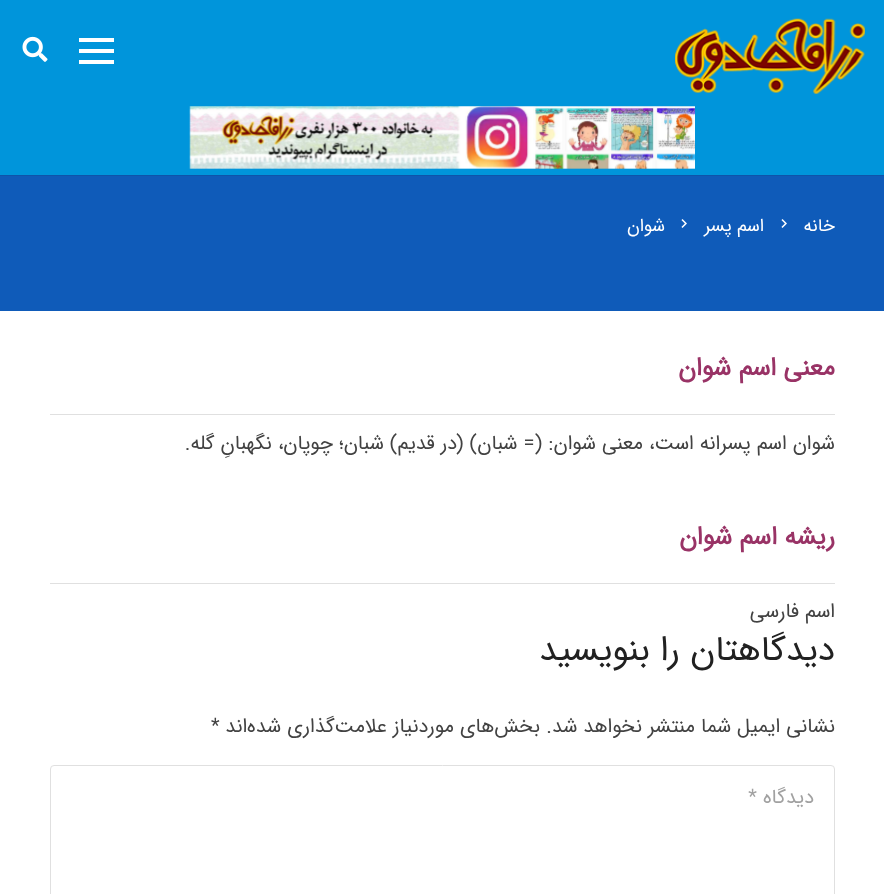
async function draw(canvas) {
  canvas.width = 884;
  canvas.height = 894;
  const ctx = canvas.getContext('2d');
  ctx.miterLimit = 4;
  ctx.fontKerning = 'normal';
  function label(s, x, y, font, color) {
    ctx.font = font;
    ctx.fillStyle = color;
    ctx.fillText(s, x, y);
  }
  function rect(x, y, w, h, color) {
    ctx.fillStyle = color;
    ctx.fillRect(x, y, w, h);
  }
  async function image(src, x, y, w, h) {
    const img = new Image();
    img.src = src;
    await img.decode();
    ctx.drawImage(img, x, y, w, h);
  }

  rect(0, 0, 884, 894, '#fff');
  rect(0, 0, 884, 175, '#0095db');
  await image('assets/img1.png', 675, 18, 190, 76);
  rect(79, 49, 35, 4, '#fff');
  rect(79, 38, 35, 4, '#fff');
  rect(79, 60, 35, 4, '#fff');
  await image('assets/img2.png', 22, 36, 26, 26);
  rect(0, 175, 884, 1, '#0e54aa');
  await image('assets/img3.png', 189, 106, 506, 63);
  rect(0, 176, 884, 135, '#0f5bb9');
  ctx.direction = 'rtl';
  label('خانه', 835, 231, '18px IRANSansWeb', '#fff');
  await image('assets/img4.png', 781, 219, 6, 9);
  label('اسم پسر', 764, 231, '18px IRANSansWeb', '#fff');
  await image('assets/img4.png', 681, 219, 6, 9);
  label('شوان', 665, 231, '18px IRANSansWeb', '#fff');
  label('معنی اسم شوان', 835, 375, 'bold 25px IRANSansWeb', '#936');
  rect(50, 414, 785, 1, '#e0e0e0');
  label('شوان اسم پسرانه است، معنی شوان: (= شبان) (در قدیم) شبان؛ چوپان، نگهبانِ گله.', 835, 449, '20px IRANSansWeb', '#424242');
  label('ریشه اسم شوان', 835, 544, 'bold 25px IRANSansWeb', '#936');
  rect(50, 583, 785, 1, '#e0e0e0');
  label('اسم فارسی', 835, 617, '20px IRANSansWeb', '#424242');
  label('دیدگاهتان را بنویسید', 835, 660, '35px IRANSansWeb', '#212121');
  label('نشانی ایمیل شما منتشر نخواهد شد.', 835, 732, '20px IRANSansWeb', '#424242');
  label('بخش‌های موردنیاز علامت‌گذاری شده‌اند', 540, 732, '20px IRANSansWeb', '#424242');
  ctx.direction = 'ltr';
  label('*', 211, 732, '20px IRANSansWeb', '#424242');
  ctx.beginPath();
  ctx.roundRect(50.5, 765.5, 784, 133, 3.5);
  ctx.strokeStyle = '#e0e0e0';
  ctx.stroke();
  ctx.direction = 'rtl';
  label('دیدگاه *', 814, 803, '20px IRANSansWeb', '#a1a1a1');
}

draw(document.querySelector('canvas'));
